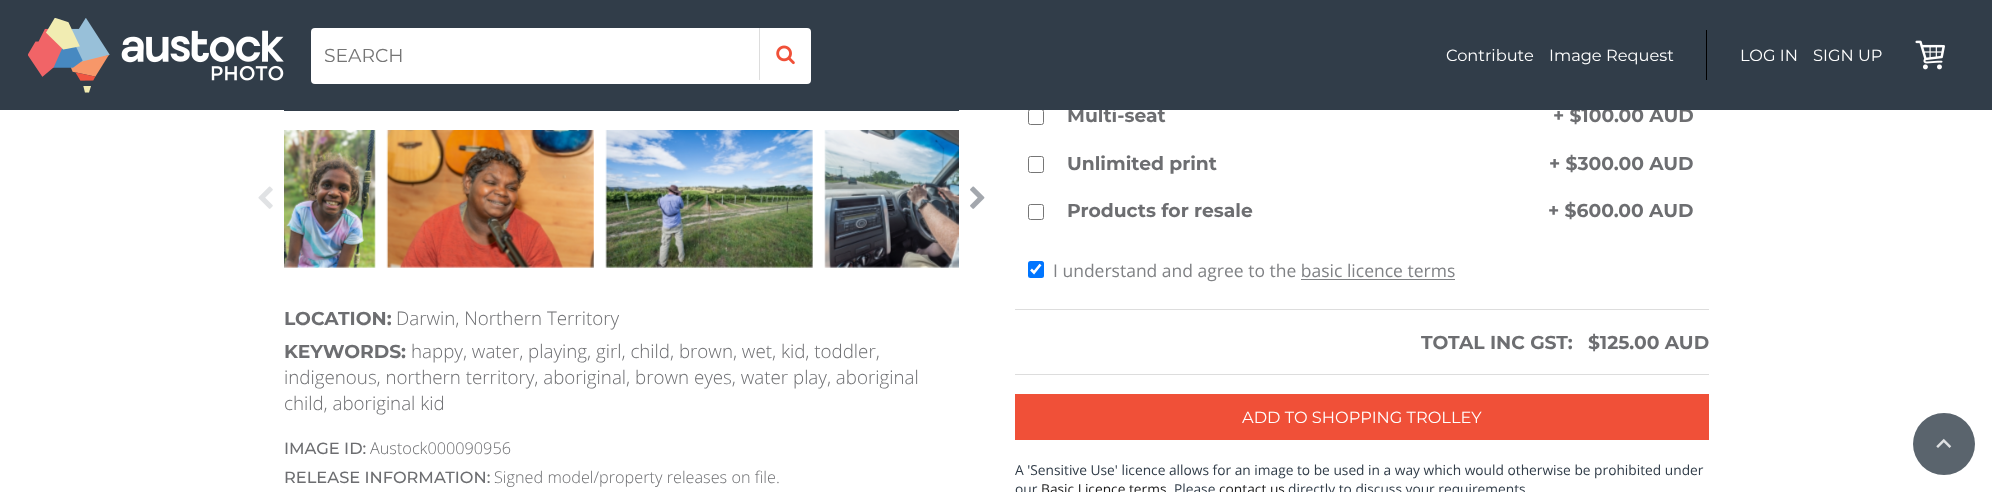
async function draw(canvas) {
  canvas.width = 1992;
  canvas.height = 492;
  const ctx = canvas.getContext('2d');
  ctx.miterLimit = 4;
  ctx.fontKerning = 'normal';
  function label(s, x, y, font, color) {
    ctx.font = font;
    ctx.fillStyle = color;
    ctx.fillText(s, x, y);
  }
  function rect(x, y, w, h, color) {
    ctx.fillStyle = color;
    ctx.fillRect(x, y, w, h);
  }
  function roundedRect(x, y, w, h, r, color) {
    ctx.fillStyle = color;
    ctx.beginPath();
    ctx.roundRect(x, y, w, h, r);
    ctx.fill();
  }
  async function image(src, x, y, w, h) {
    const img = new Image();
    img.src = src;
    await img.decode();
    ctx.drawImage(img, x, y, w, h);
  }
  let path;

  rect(0, 0, 1992, 492, '#fff');
  ctx.beginPath();
  ctx.roundRect(1028.5, 109.5, 15, 15, 2);
  ctx.strokeStyle = '#767676';
  ctx.stroke();
  label('Multi-seat', 1067, 122, 'bold 18.75px Montserrat', '#6d6e71');
  label('+ $100.00 AUD', 1553, 122, 'bold 18.75px Montserrat', '#6d6e71');
  rect(0, 0, 1992, 110, '#313d49');
  await image('assets/img1.png', 28, 18, 256, 75);
  roundedRect(311, 28, 500, 56, 4, '#fff');
  label('SEARCH', 324, 62, '18.75px Montserrat', '#757575');
  rect(759, 28, 1, 52, '#ddd');
  await image('assets/img2.png', 776, 45, 19, 20);
  label('Contribute', 1446, 61, '16.25px Montserrat', '#fff');
  label('Image Request', 1549, 61, '16.25px Montserrat', '#fff');
  rect(1706, 30, 1, 50, '#000');
  label('LOG IN', 1740, 61, '16.25px Montserrat', '#fff');
  label('SIGN UP', 1813, 61, '16.25px Montserrat', '#fff');
  await image('assets/img3.png', 1915, 40, 30, 30);
  rect(284, 110, 675, 1, '#313d49');
  await image('assets/img4.png', 258, 186, 15, 23);
  await image('assets/img5.png', 284, 130, 92, 138);
  await image('assets/img6.png', 386, 130, 208, 138);
  await image('assets/img7.png', 605, 130, 208, 138);
  await image('assets/img8.png', 824, 130, 135, 138);
  await image('assets/img9.png', 970, 186, 15, 23);
  label('LOCATION:', 284, 325, 'bold 18.75px Montserrat', '#6d6e71');
  label('Darwin, Northern Territory', 396, 325, '300 18.75px Open Sans', '#6d6e71');
  label('KEYWORDS:', 284, 358, 'bold 18.75px Montserrat', '#6d6e71');
  label('happy, water, playing, girl, child, brown, wet, kid, toddler,', 411, 358, '300 18.75px Open Sans', '#6d6e71');
  label('indigenous, northern territory, aboriginal, brown eyes, water play, aboriginal', 284, 384, '300 18.75px Open Sans', '#6d6e71');
  label('child, aboriginal kid', 284, 410, '300 18.75px Open Sans', '#6d6e71');
  label('IMAGE ID:', 284, 454, '500 16.25px Montserrat', '#6d6e71');
  label('Austock000090956', 370, 454, '300 16.25px Open Sans', '#6d6e71');
  label('RELEASE INFORMATION:', 284, 483, '500 16.25px Montserrat', '#6d6e71');
  label('Signed model/property releases on file.', 494, 483, '300 16.25px Open Sans', '#6d6e71');
  ctx.beginPath();
  ctx.roundRect(1028.5, 156.5, 15, 16, 2);
  ctx.stroke();
  label('Unlimited print', 1067, 170, 'bold 18.75px Montserrat', '#6d6e71');
  label('+ $300.00 AUD', 1549, 170, 'bold 18.75px Montserrat', '#6d6e71');
  ctx.beginPath();
  ctx.roundRect(1028.5, 204.5, 15, 15, 2);
  ctx.stroke();
  label('Products for resale', 1067, 217, 'bold 18.75px Montserrat', '#6d6e71');
  label('+ $600.00 AUD', 1548, 217, 'bold 18.75px Montserrat', '#6d6e71');
  roundedRect(1028, 261, 16, 17, 2.5, '#0075ff');
  path = new Path2D('M1031 269.5L1034 272.5L1040.5 264.5');
  ctx.strokeStyle = '#fff';
  ctx.lineWidth = 2.6;
  ctx.stroke(path);
  label('I understand and agree to the basic licence terms', 1053, 277, '17.5px Open Sans', '#808285');
  rect(1301, 279, 154, 1, '#808285');
  rect(1015, 309, 694, 1, '#ddd');
  rect(1015, 374, 694, 1, '#ddd');
  label('TOTAL INC GST:', 1421, 349, 'bold 18.75px Montserrat', '#6d6e71');
  label('$125.00 AUD', 1588, 349, 'bold 18.75px Montserrat', '#6d6e71');
  rect(1015, 394, 694, 46, '#f05038');
  label('ADD TO SHOPPING TROLLEY', 1242, 423, '16.25px Montserrat', '#fff');
  label('A \'Sensitive Use\' licence allows for an image to be used in a way which would otherwise be prohibited under', 1015, 475, '13.75px Open Sans', '#313d49');
  label('our', 1015, 494, '13.75px Open Sans', '#313d49');
  label('Basic Licence terms', 1041, 494, '13.75px Open Sans', '#1a1a1a');
  label('Please', 1174, 494, '13.75px Open Sans', '#313d49');
  label('contact us', 1219, 494, '13.75px Open Sans', '#1a1a1a');
  label('directly to discuss your requirements', 1288, 494, '13.75px Open Sans', '#313d49');
  ctx.fillStyle = '#5a646d';
  ctx.beginPath();
  ctx.arc(1944, 444, 31, 0, 2 * Math.PI);
  ctx.fill();
  await image('assets/img10.png', 1936, 438, 16, 10);
}

draw(document.querySelector('canvas'));
